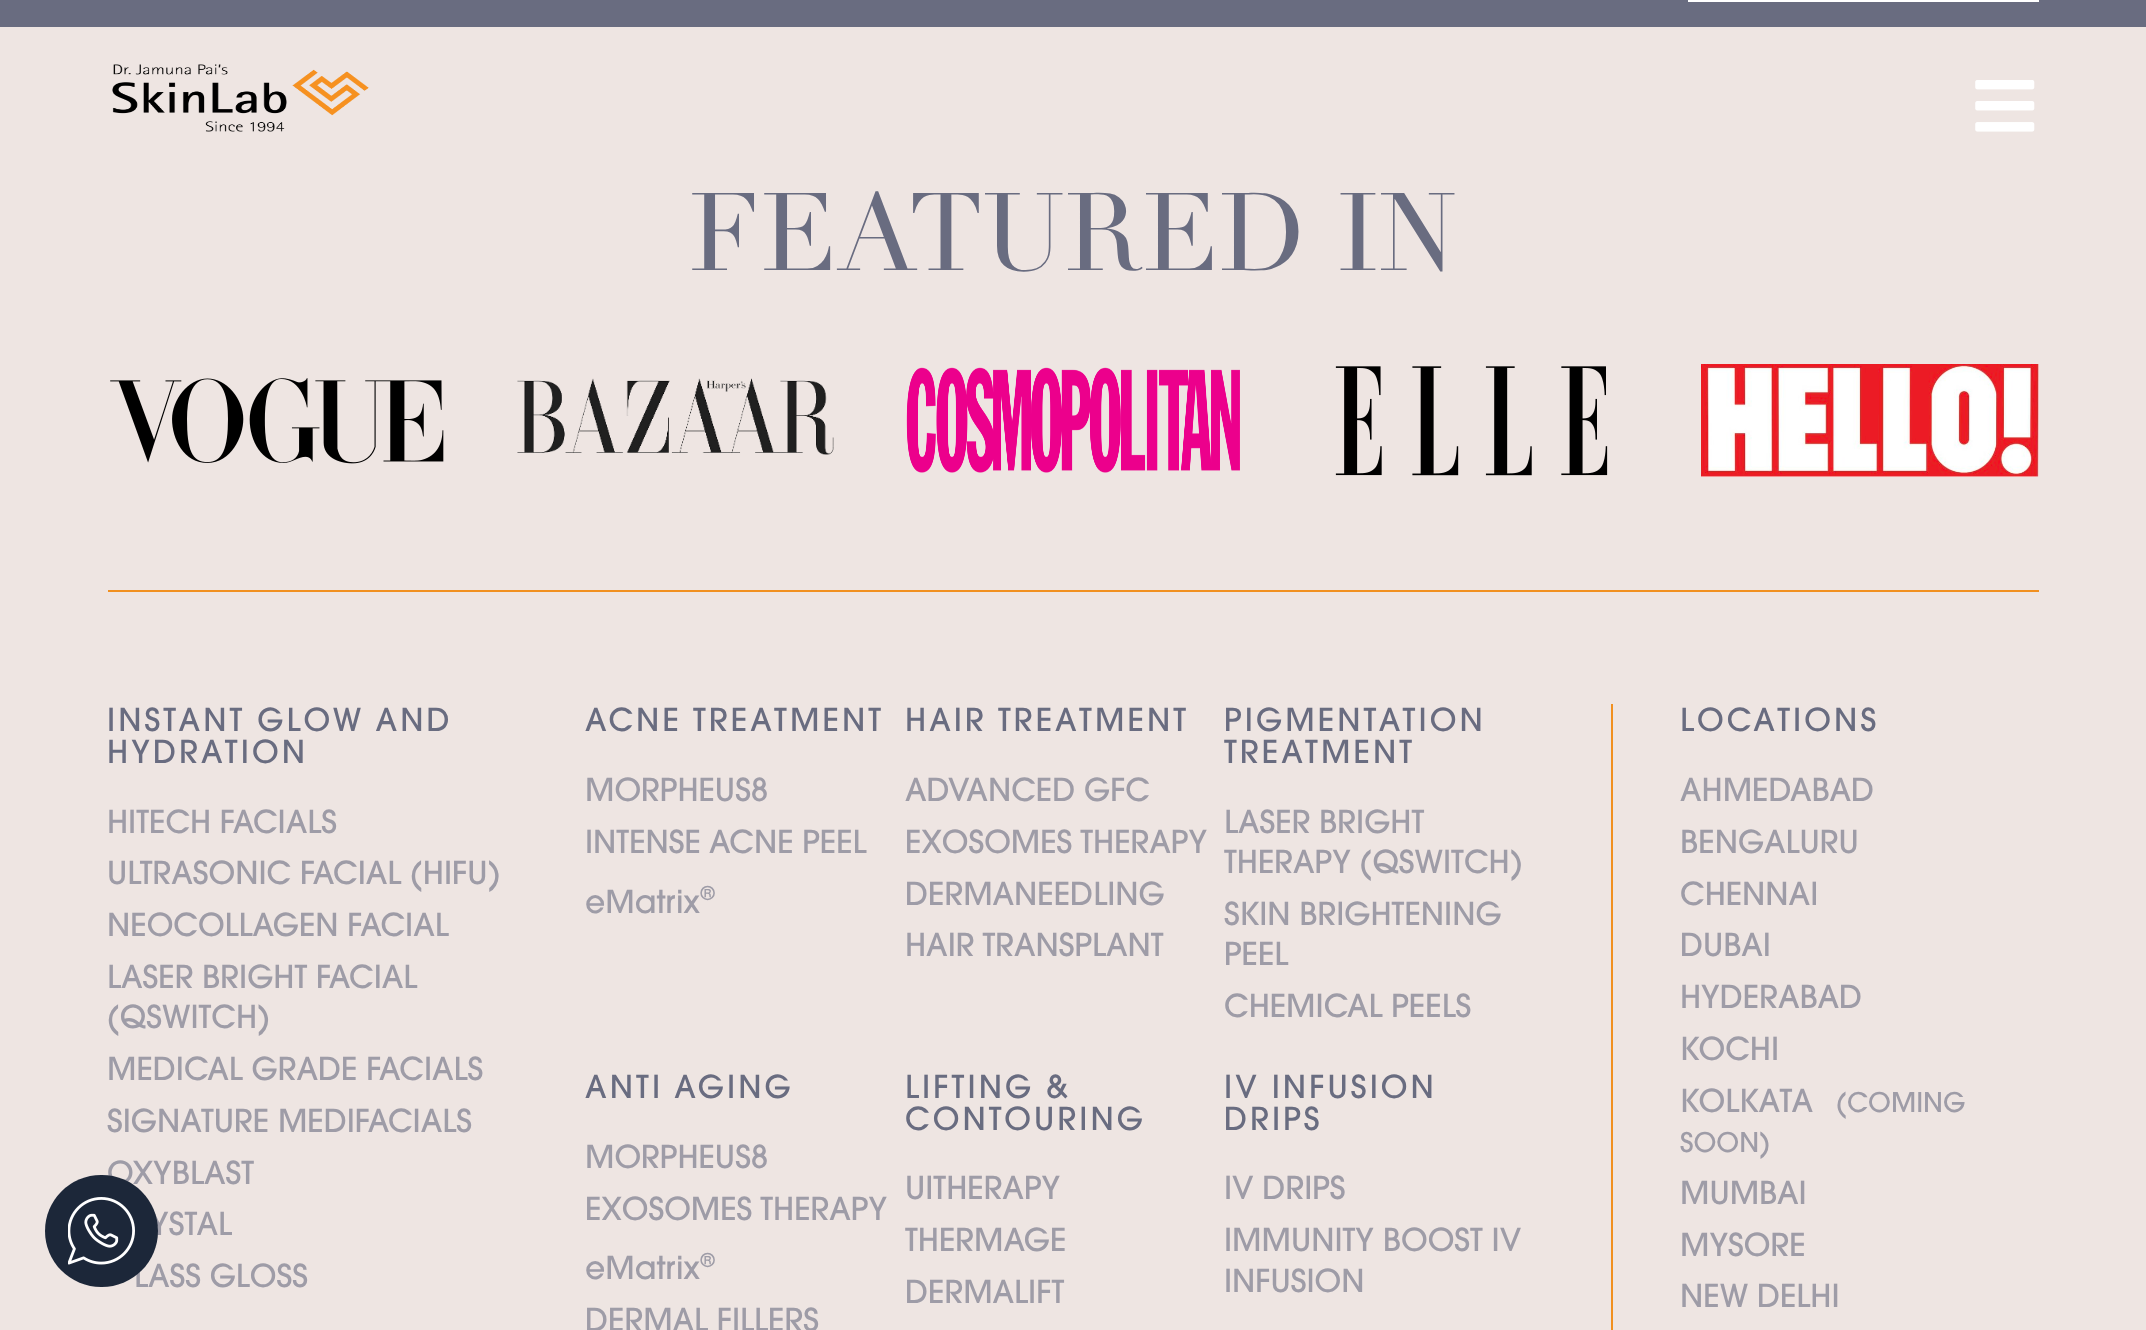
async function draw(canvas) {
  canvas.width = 2146;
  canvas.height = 1330;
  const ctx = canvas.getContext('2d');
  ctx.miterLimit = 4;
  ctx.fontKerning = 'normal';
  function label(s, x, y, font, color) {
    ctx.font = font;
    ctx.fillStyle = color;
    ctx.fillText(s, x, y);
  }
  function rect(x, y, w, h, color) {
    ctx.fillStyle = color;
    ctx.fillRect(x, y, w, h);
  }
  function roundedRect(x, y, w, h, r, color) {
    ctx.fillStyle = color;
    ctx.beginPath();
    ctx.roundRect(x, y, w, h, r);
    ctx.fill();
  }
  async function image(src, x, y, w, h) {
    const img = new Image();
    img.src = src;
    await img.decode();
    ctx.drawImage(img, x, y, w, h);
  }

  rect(0, 0, 2146, 1330, '#eee5e2');
  rect(0, 0, 2146, 27, '#696c80');
  ctx.strokeStyle = '#fff';
  ctx.lineWidth = 2;
  ctx.strokeRect(1689, -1, 349, 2);
  await image('assets/img1.png', 112, 64, 257, 68);
  await image('assets/img2.png', 1975, 80, 60, 52);
  label('OXYBLAST', 107, 1184, '500 31.5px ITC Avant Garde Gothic', '#9e9ca7');
  label('YSTAL', 150, 1235, '500 31.5px ITC Avant Garde Gothic', '#9e9ca7');
  label('LASS GLOSS', 134, 1287, '500 31.5px ITC Avant Garde Gothic', '#9e9ca7');
  roundedRect(45, 1175, 113, 112, 56, '#1c2739');
  await image('assets/img3.png', 68, 1197, 67, 68);
  label('FEATURED IN', 689, 270, '108px Didot', '#696c80');
  await image('assets/img4.png', 110, 378, 334, 86);
  await image('assets/img5.png', 517, 378, 317, 77);
  await image('assets/img6.png', 906, 367, 334, 106);
  await image('assets/img7.png', 1335, 366, 273, 110);
  await image('assets/img8.png', 1701, 364, 338, 113);
  rect(108, 590, 1931, 2, '#f19020');
  ctx.letterSpacing = '3.1px';
  label('INSTANT GLOW AND', 107, 731, '500 31.5px ITC Avant Garde Gothic', '#696c80');
  label('HYDRATION', 107, 763, '500 31.5px ITC Avant Garde Gothic', '#696c80');
  ctx.letterSpacing = '0px';
  label('HITECH FACIALS', 107, 833, '500 31.5px ITC Avant Garde Gothic', '#9e9ca7');
  label('ULTRASONIC FACIAL (HIFU)', 107, 884, '500 31.5px ITC Avant Garde Gothic', '#9e9ca7');
  label('NEOCOLLAGEN FACIAL', 107, 936, '500 31.5px ITC Avant Garde Gothic', '#9e9ca7');
  label('LASER BRIGHT FACIAL', 107, 988, '500 31.5px ITC Avant Garde Gothic', '#9e9ca7');
  label('(QSWITCH)', 107, 1028, '500 31.5px ITC Avant Garde Gothic', '#9e9ca7');
  label('MEDICAL GRADE FACIALS', 107, 1080, '500 31.5px ITC Avant Garde Gothic', '#9e9ca7');
  label('SIGNATURE MEDIFACIALS', 107, 1132, '500 31.5px ITC Avant Garde Gothic', '#9e9ca7');
  ctx.letterSpacing = '3.1px';
  label('ACNE TREATMENT', 585, 731, '500 31.5px ITC Avant Garde Gothic', '#696c80');
  ctx.letterSpacing = '0px';
  label('MORPHEUS8', 585, 801, '500 31.5px ITC Avant Garde Gothic', '#9e9ca7');
  label('INTENSE ACNE PEEL', 585, 853, '500 31.5px ITC Avant Garde Gothic', '#9e9ca7');
  label('eMatrix', 585, 913, '500 31.5px ITC Avant Garde Gothic', '#9e9ca7');
  label('®', 700, 900, '500 19px ITC Avant Garde Gothic', '#9e9ca7');
  ctx.letterSpacing = '3.1px';
  label('HAIR TREATMENT', 905, 731, '500 31.5px ITC Avant Garde Gothic', '#696c80');
  ctx.letterSpacing = '0px';
  label('ADVANCED GFC', 905, 801, '500 31.5px ITC Avant Garde Gothic', '#9e9ca7');
  label('EXOSOMES THERAPY', 905, 853, '500 31.5px ITC Avant Garde Gothic', '#9e9ca7');
  label('DERMANEEDLING', 905, 905, '500 31.5px ITC Avant Garde Gothic', '#9e9ca7');
  label('HAIR TRANSPLANT', 905, 956, '500 31.5px ITC Avant Garde Gothic', '#9e9ca7');
  ctx.letterSpacing = '3.1px';
  label('PIGMENTATION', 1224, 731, '500 31.5px ITC Avant Garde Gothic', '#696c80');
  label('TREATMENT', 1224, 763, '500 31.5px ITC Avant Garde Gothic', '#696c80');
  ctx.letterSpacing = '0px';
  label('LASER BRIGHT', 1224, 833, '500 31.5px ITC Avant Garde Gothic', '#9e9ca7');
  label('THERAPY (QSWITCH)', 1224, 873, '500 31.5px ITC Avant Garde Gothic', '#9e9ca7');
  label('SKIN BRIGHTENING', 1224, 925, '500 31.5px ITC Avant Garde Gothic', '#9e9ca7');
  label('PEEL', 1224, 965, '500 31.5px ITC Avant Garde Gothic', '#9e9ca7');
  label('CHEMICAL PEELS', 1224, 1017, '500 31.5px ITC Avant Garde Gothic', '#9e9ca7');
  ctx.letterSpacing = '3.1px';
  label('ANTI AGING', 585, 1098, '500 31.5px ITC Avant Garde Gothic', '#696c80');
  ctx.letterSpacing = '0px';
  label('MORPHEUS8', 585, 1168, '500 31.5px ITC Avant Garde Gothic', '#9e9ca7');
  label('EXOSOMES THERAPY', 585, 1220, '500 31.5px ITC Avant Garde Gothic', '#9e9ca7');
  label('eMatrix', 585, 1279, '500 31.5px ITC Avant Garde Gothic', '#9e9ca7');
  label('®', 700, 1267, '500 19px ITC Avant Garde Gothic', '#9e9ca7');
  label('DERMAL FILLERS', 585, 1331, '500 31.5px ITC Avant Garde Gothic', '#9e9ca7');
  ctx.letterSpacing = '3.1px';
  label('LIFTING &', 905, 1098, '500 31.5px ITC Avant Garde Gothic', '#696c80');
  label('CONTOURING', 905, 1130, '500 31.5px ITC Avant Garde Gothic', '#696c80');
  ctx.letterSpacing = '0px';
  label('UITHERAPY', 905, 1199, '500 31.5px ITC Avant Garde Gothic', '#9e9ca7');
  label('THERMAGE', 905, 1251, '500 31.5px ITC Avant Garde Gothic', '#9e9ca7');
  label('DERMALIFT', 905, 1303, '500 31.5px ITC Avant Garde Gothic', '#9e9ca7');
  ctx.letterSpacing = '3.1px';
  label('IV INFUSION', 1224, 1098, '500 31.5px ITC Avant Garde Gothic', '#696c80');
  label('DRIPS', 1224, 1130, '500 31.5px ITC Avant Garde Gothic', '#696c80');
  ctx.letterSpacing = '0px';
  label('IV DRIPS', 1224, 1199, '500 31.5px ITC Avant Garde Gothic', '#9e9ca7');
  label('IMMUNITY BOOST IV', 1224, 1251, '500 31.5px ITC Avant Garde Gothic', '#9e9ca7');
  label('INFUSION', 1224, 1292, '500 31.5px ITC Avant Garde Gothic', '#9e9ca7');
  rect(1611, 704, 2, 626, '#f19020');
  ctx.letterSpacing = '3.1px';
  label('LOCATIONS', 1680, 731, '500 31.5px ITC Avant Garde Gothic', '#696c80');
  ctx.letterSpacing = '0px';
  label('AHMEDABAD', 1680, 801, '500 31.5px ITC Avant Garde Gothic', '#9e9ca7');
  label('BENGALURU', 1680, 853, '500 31.5px ITC Avant Garde Gothic', '#9e9ca7');
  label('CHENNAI', 1680, 905, '500 31.5px ITC Avant Garde Gothic', '#9e9ca7');
  label('DUBAI', 1680, 956, '500 31.5px ITC Avant Garde Gothic', '#9e9ca7');
  label('HYDERABAD', 1680, 1008, '500 31.5px ITC Avant Garde Gothic', '#9e9ca7');
  label('KOCHI', 1680, 1060, '500 31.5px ITC Avant Garde Gothic', '#9e9ca7');
  label('KOLKATA', 1680, 1112, '500 31.5px ITC Avant Garde Gothic', '#9e9ca7');
  label('(COMING', 1836, 1112, '500 27px ITC Avant Garde Gothic', '#9e9ca7');
  label('SOON)', 1680, 1152, '500 27px ITC Avant Garde Gothic', '#9e9ca7');
  label('MUMBAI', 1680, 1204, '500 31.5px ITC Avant Garde Gothic', '#9e9ca7');
  label('MYSORE', 1680, 1256, '500 31.5px ITC Avant Garde Gothic', '#9e9ca7');
  label('NEW DELHI', 1680, 1307, '500 31.5px ITC Avant Garde Gothic', '#9e9ca7');
}

draw(document.querySelector('canvas'));
